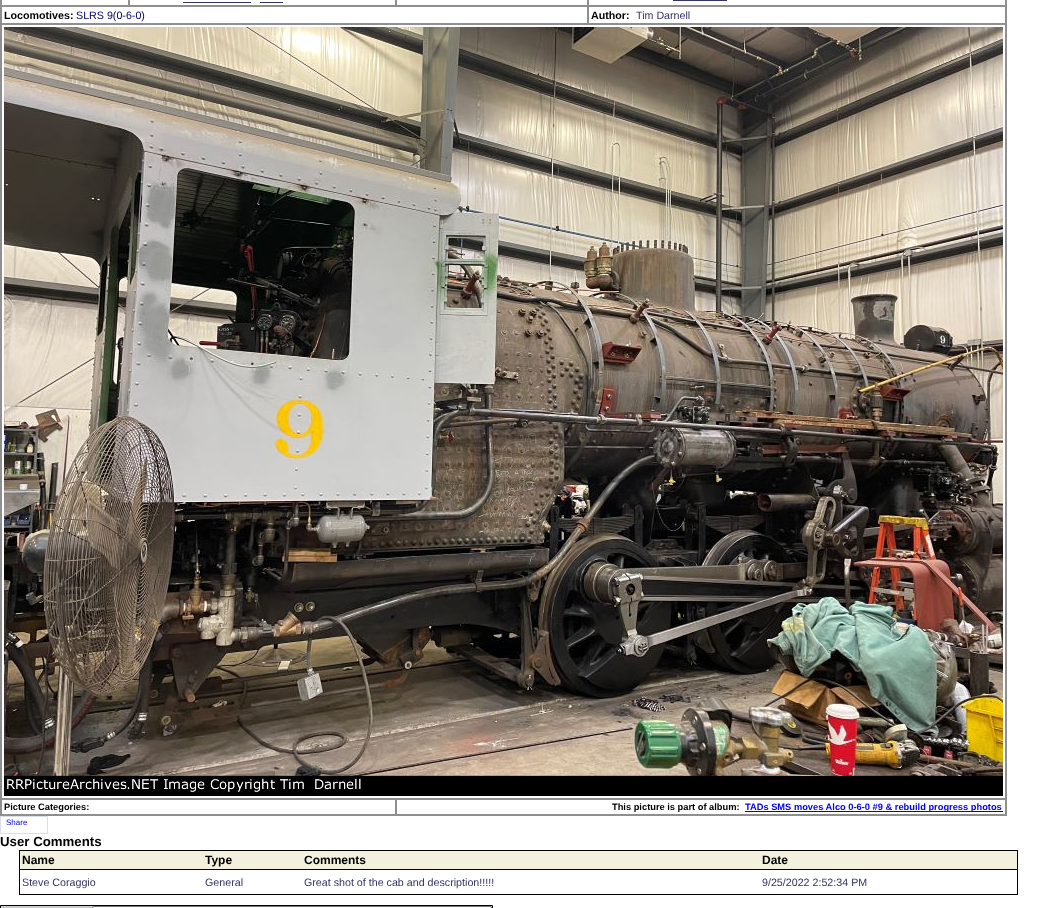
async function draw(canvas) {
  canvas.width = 1037;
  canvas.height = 908;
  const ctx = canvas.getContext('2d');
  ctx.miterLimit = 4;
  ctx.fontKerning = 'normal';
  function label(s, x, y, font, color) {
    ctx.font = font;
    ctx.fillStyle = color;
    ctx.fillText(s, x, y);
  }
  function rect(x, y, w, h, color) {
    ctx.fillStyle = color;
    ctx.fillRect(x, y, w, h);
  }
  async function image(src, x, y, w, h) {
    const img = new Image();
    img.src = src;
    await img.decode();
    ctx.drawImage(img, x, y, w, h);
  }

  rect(0, 0, 1037, 908, '#fff');
  ctx.strokeStyle = '#8f8f8f';
  ctx.strokeRect(0.5, -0.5, 1006, 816);
  ctx.strokeRect(1.5, -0.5, 127, 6);
  ctx.strokeRect(129.5, -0.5, 266, 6);
  rect(183, 2, 68, 1, '#336');
  rect(260, 2, 23, 1, '#336');
  ctx.strokeRect(396.5, -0.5, 191, 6);
  ctx.strokeRect(588.5, -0.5, 417, 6);
  rect(673, 0, 54, 1, '#336');
  ctx.strokeRect(1.5, 6.5, 586, 17);
  label('Locomotives:', 4, 19, 'bold 10.7px Liberation Sans', '#000');
  label('SLRS 9(0-6-0)', 76, 19, '10.7px Liberation Sans', '#000063');
  ctx.strokeRect(588.5, 6.5, 417, 17);
  label('Author:', 591, 19, 'bold 10.7px Liberation Sans', '#000');
  label('Tim Darnell', 636, 19, '10.7px Liberation Sans', '#336');
  ctx.strokeRect(1.5, 24.5, 1004, 774);
  await image('assets/img1.png', 4, 27, 999, 769);
  ctx.strokeRect(1.5, 799.5, 394, 15);
  label('Picture Categories:', 4, 810, 'bold 9.3px Liberation Sans', '#000');
  ctx.strokeRect(396.5, 799.5, 609, 15);
  label('This picture is part of album:', 612, 810, 'bold 9.3px Liberation Sans', '#000');
  rect(745, 811, 258, 1, '#00e');
  label('TADs SMS moves Alco 0-6-0 #9 & rebuild progress photos', 745, 810, 'bold 9.3px Liberation Sans', '#00e');
  ctx.strokeStyle = '#d8dfea';
  ctx.strokeRect(0.5, 816.5, 47, 17);
  label('Share', 6, 825, '8px Liberation Sans', '#00e');
  label('User Comments', 0, 846, 'bold 13.25px Liberation Sans', '#000');
  ctx.strokeStyle = '#000';
  ctx.strokeRect(19.5, 850.5, 998, 44);
  rect(20, 851, 997, 18, '#f3f0dd');
  rect(20, 869, 997, 1, '#000');
  label('Name', 22, 864, 'bold 12px Liberation Sans', '#000');
  label('Type', 205, 864, 'bold 12px Liberation Sans', '#000');
  label('Comments', 304, 864, 'bold 12px Liberation Sans', '#000');
  label('Date', 762, 864, 'bold 12px Liberation Sans', '#000');
  label('Steve Coraggio', 22, 886, '10.7px Liberation Sans', '#336');
  label('General', 205, 886, '10.7px Liberation Sans', '#336');
  label('Great shot of the cab and description!!!!!', 304, 886, '10.7px Liberation Sans', '#336');
  label('9/25/2022 2:52:34 PM', 762, 886, '10.7px Liberation Sans', '#336');
  ctx.fillStyle = '#c9c9c9';
  ctx.beginPath();
  ctx.rect(0.5, 905.5, 492, 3);
  ctx.fill();
  ctx.stroke();
  ctx.fillStyle = '#fff';
  ctx.beginPath();
  ctx.roundRect(92.5, 906.5, 399, 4, 1.5);
  ctx.fill();
  ctx.strokeStyle = '#767676';
  ctx.stroke();
}

draw(document.querySelector('canvas'));
